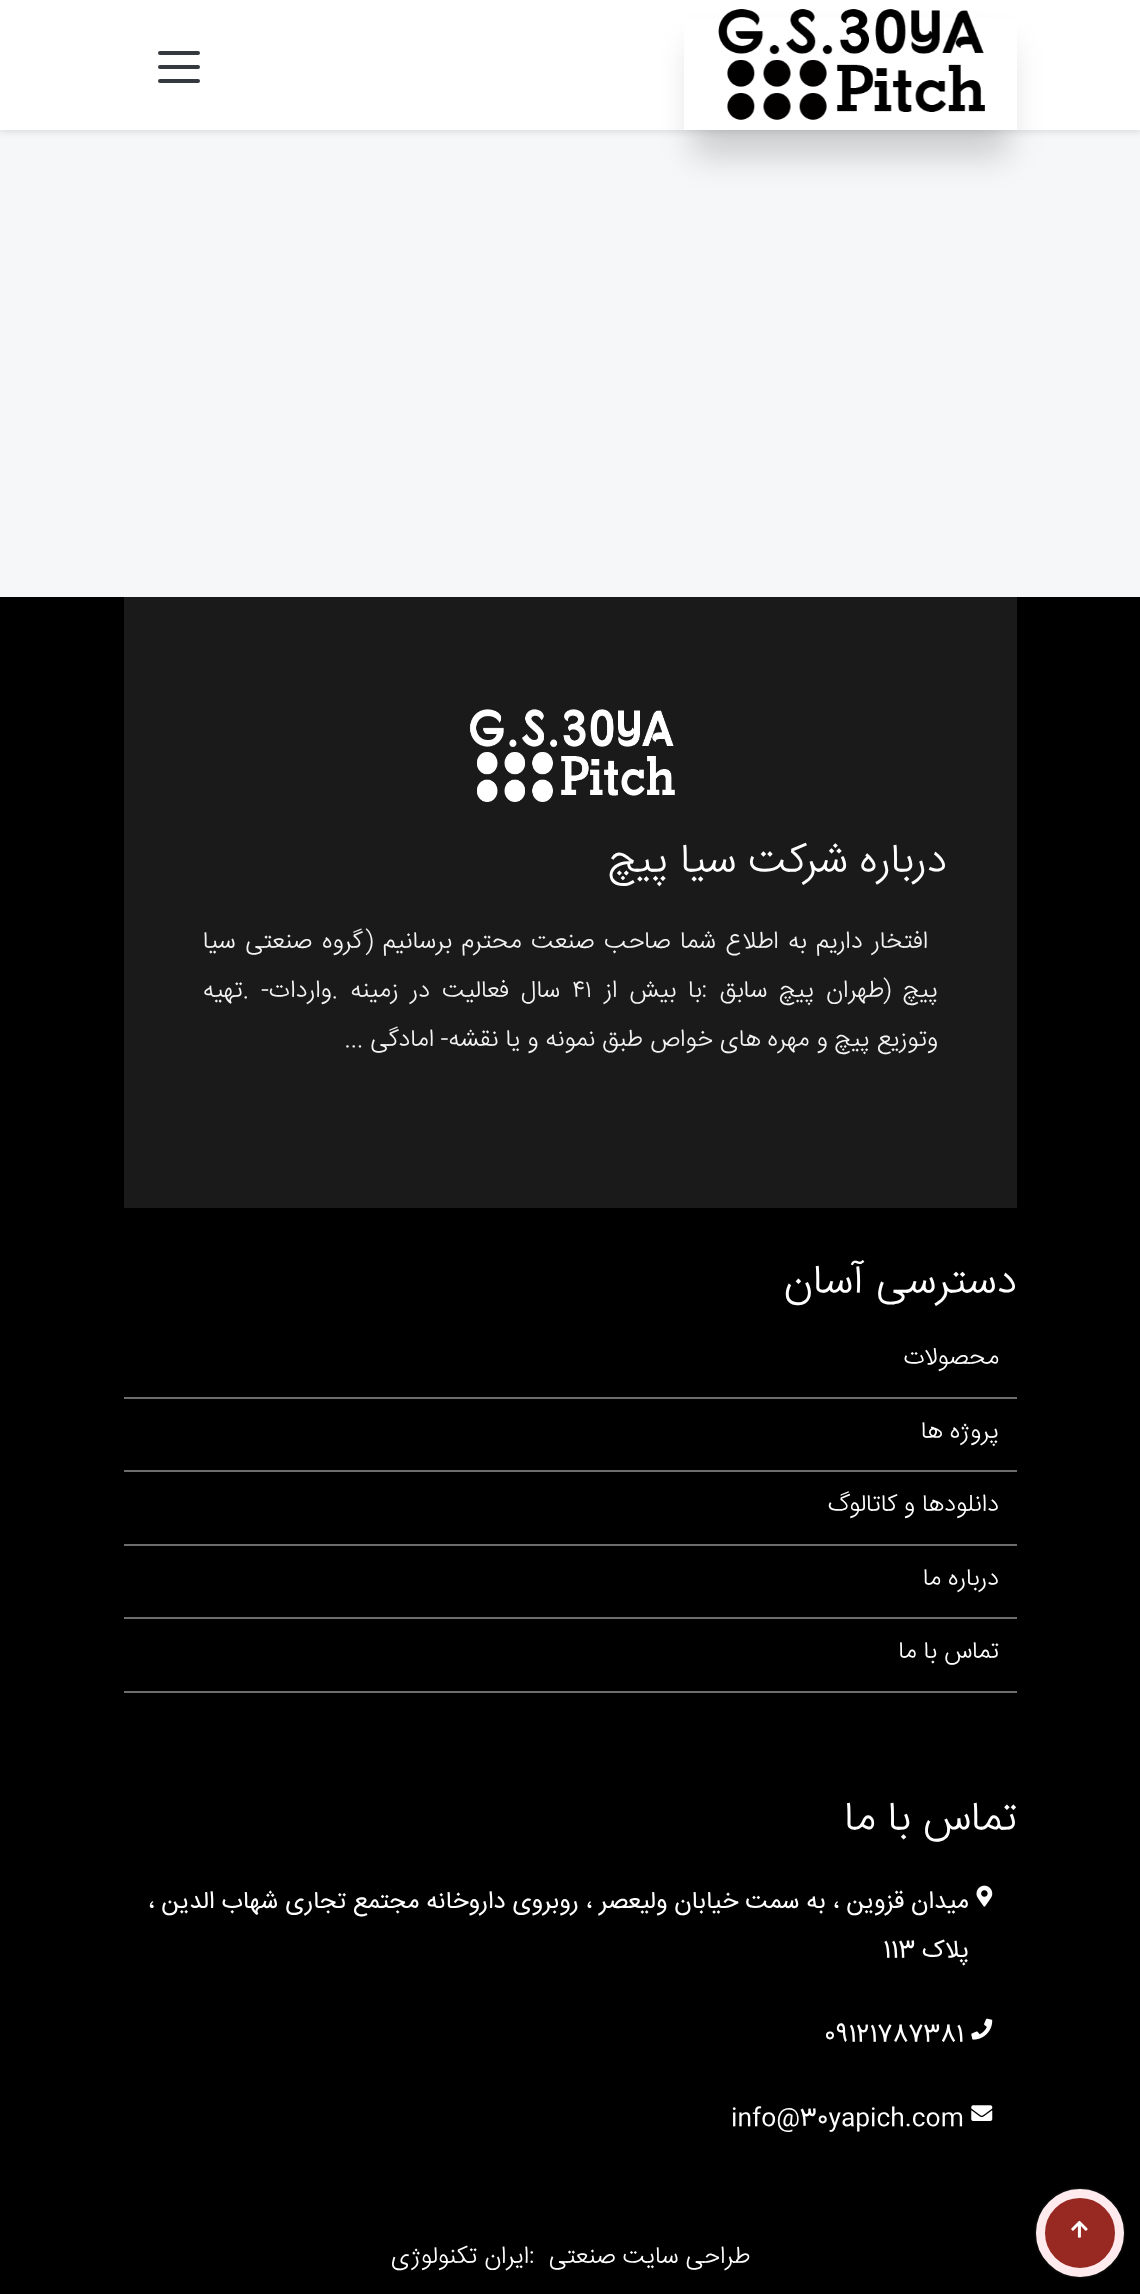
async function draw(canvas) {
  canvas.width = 1140;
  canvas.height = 2294;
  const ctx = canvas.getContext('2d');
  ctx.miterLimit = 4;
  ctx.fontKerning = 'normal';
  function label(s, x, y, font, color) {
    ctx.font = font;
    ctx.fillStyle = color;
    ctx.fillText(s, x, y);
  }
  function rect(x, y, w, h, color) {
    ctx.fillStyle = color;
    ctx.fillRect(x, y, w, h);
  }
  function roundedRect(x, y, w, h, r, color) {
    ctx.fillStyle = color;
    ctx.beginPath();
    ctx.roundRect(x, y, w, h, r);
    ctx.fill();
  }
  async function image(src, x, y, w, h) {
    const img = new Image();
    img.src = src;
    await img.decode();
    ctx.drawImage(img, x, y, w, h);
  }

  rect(0, 0, 1140, 2294, '#f6f7f9');
  ctx.fillStyle = '#ccc';
  ctx.filter = 'blur(4.5px)';
  ctx.beginPath();
  ctx.rect(0, 0, 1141, 130);
  ctx.fill();
  ctx.filter = 'none';
  rect(0, 0, 1140, 130, '#fff');
  ctx.fillStyle = '#0000002b';
  ctx.filter = 'blur(16.5px)';
  ctx.beginPath();
  ctx.rect(693, 44, 315, 112);
  ctx.fill();
  ctx.filter = 'none';
  rect(684, 18, 333, 112, '#fff');
  await image('assets/img1.png', 718, 9, 267, 111);
  roundedRect(158, 79, 42, 4, 2, '#343a40');
  roundedRect(158, 65, 42, 4, 2, '#343a40');
  roundedRect(158, 51, 42, 4, 2, '#343a40');
  rect(0, 597, 1140, 1697, '#000');
  ctx.fillStyle = '#333';
  ctx.filter = 'blur(1px)';
  ctx.beginPath();
  ctx.roundRect(1036, 2189, 88, 88, 44);
  ctx.fill();
  ctx.filter = 'none';
  ctx.fillStyle = '#982922';
  ctx.beginPath();
  ctx.arc(1080, 2233, 39.5, 0, 2 * Math.PI);
  ctx.fill();
  ctx.strokeStyle = '#ffebee';
  ctx.lineWidth = 9;
  ctx.stroke();
  await image('assets/img2.png', 1071, 2220, 17, 18);
  rect(124, 597, 893, 611, '#1a1a1a');
  await image('assets/img3.png', 469, 709, 206, 93);
  ctx.direction = 'rtl';
  label('درباره شرکت سیا پیچ', 947, 872, '300 42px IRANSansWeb', '#fff');
  ctx.wordSpacing = '2.5px';
  label('افتخار داریم به اطلاع شما صاحب صنعت محترم برسانیم', 928, 948, '300 24.5px IRANSansWeb', '#f4f4f4');
  ctx.wordSpacing = '3px';
  label('(گروه صنعتی سیا', 373, 948, '300 24.5px IRANSansWeb', '#f4f4f4');
  ctx.wordSpacing = '5px';
  label('پیچ (طهران پیچ سابق', 938, 997, '300 24.5px IRANSansWeb', '#f4f4f4');
  label(':با بیش از', 707, 997, '300 24.5px IRANSansWeb', '#f4f4f4');
  ctx.wordSpacing = '0px';
  ctx.direction = 'ltr';
  label('۴۱', 572, 997, '300 24.5px IRANSansWeb', '#f4f4f4');
  ctx.wordSpacing = '5px';
  ctx.direction = 'rtl';
  label('سال فعالیت در زمینه', 560, 997, '300 24.5px IRANSansWeb', '#f4f4f4');
  ctx.wordSpacing = '0px';
  label('.واردات-', 338, 997, '300 24.5px IRANSansWeb', '#f4f4f4');
  label('.تهیه', 249, 997, '300 24.5px IRANSansWeb', '#f4f4f4');
  label('وتوزیع پیچ و مهره های خواص طبق نمونه و یا نقشه-', 938, 1046, '300 24.5px IRANSansWeb', '#f4f4f4');
  label('امادگی ...', 434, 1046, '300 24.5px IRANSansWeb', '#f4f4f4');
  label('دسترسی آسان', 1017, 1293, '300 42px IRANSansWeb', '#fff');
  rect(124, 1397, 893, 2, '#6d6d6d');
  label('محصولات', 999, 1364, '300 24.5px IRANSansWeb', '#fff');
  rect(124, 1470, 893, 2, '#6d6d6d');
  label('پروژه ها', 999, 1438, '300 24.5px IRANSansWeb', '#fff');
  rect(124, 1544, 893, 2, '#6d6d6d');
  label('دانلودها و کاتالوگ', 999, 1511, '300 24.5px IRANSansWeb', '#fff');
  rect(124, 1617, 893, 2, '#6d6d6d');
  label('درباره ما', 999, 1585, '300 24.5px IRANSansWeb', '#fff');
  rect(124, 1691, 893, 2, '#6d6d6d');
  label('تماس با ما', 999, 1658, '300 24.5px IRANSansWeb', '#fff');
  label('تماس با ما', 1017, 1830, '300 42px IRANSansWeb', '#fff');
  await image('assets/img4.png', 976, 1885, 17, 22);
  label('میدان قزوین ، به سمت خیابان ولیعصر ، روبروی داروخانه مجتمع تجاری شهاب الدین ،', 969, 1908, '24.5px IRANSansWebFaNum', '#fff');
  label('پلاک', 969, 1957, '24.5px IRANSansWebFaNum', '#fff');
  ctx.direction = 'ltr';
  label('113', 883, 1957, '24.5px IRANSansWebFaNum', '#fff');
  await image('assets/img5.png', 971, 2018, 22, 22);
  label('09121787381', 824, 2041, '24.5px IRANSansWebFaNum', '#fff');
  await image('assets/img6.png', 971, 2105, 22, 16);
  label('info@30yapich.com', 731, 2125, '24.5px IRANSansWebFaNum', '#fff');
  ctx.direction = 'rtl';
  label('طراحی سایت صنعتی', 750, 2263, '300 24.5px IRANSansWeb', '#fff');
  ctx.direction = 'ltr';
  label(':', 529, 2263, '300 24.5px IRANSansWeb', '#fff');
  ctx.direction = 'rtl';
  label('ایران تکنولوژی', 529, 2263, '300 24.5px IRANSansWeb', '#fff');
}

draw(document.querySelector('canvas'));
